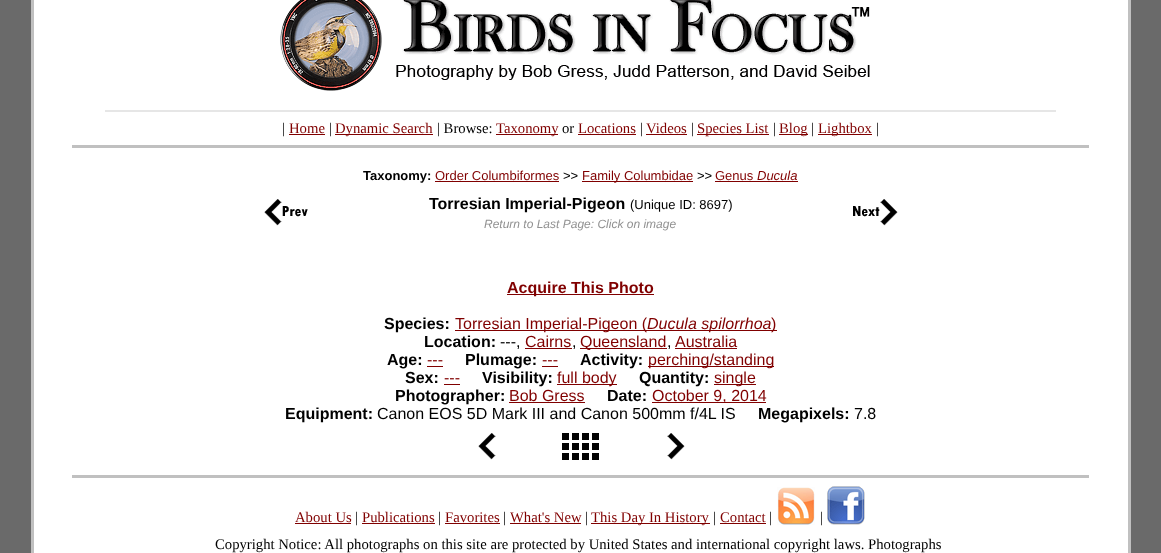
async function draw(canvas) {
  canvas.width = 1161;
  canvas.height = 553;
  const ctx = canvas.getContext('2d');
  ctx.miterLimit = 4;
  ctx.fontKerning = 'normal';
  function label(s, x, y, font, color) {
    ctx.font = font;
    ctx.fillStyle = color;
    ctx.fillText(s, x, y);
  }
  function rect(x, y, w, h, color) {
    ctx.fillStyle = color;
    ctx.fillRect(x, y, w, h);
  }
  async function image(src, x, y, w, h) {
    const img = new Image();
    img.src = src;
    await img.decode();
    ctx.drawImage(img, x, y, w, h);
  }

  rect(0, 0, 1161, 553, '#6a6a6a');
  rect(34, 0, 1094, 553, '#fff');
  rect(1128, 0, 3, 553, '#c0c0c0');
  rect(31, 0, 3, 553, '#c0c0c0');
  await image('assets/img1.png', 280, 0, 590, 91);
  rect(105, 110, 951, 2, '#e6e6e6');
  label('|', 282, 133, '14.7px Liberation Serif', '#000');
  label('Home', 289, 133, '14.7px Liberation Serif', '#800000');
  rect(289, 134, 36, 1, '#800000');
  label('|', 329, 133, '14.7px Liberation Serif', '#000');
  rect(335, 134, 98, 1, '#800000');
  label('Dynamic Search', 335, 133, '14.7px Liberation Serif', '#800000');
  label('| Browse:', 437, 133, '14.7px Liberation Serif', '#000');
  rect(496, 134, 62, 1, '#800000');
  label('Taxonomy', 496, 133, '14.7px Liberation Serif', '#800000');
  label('or', 562, 133, '14.7px Liberation Serif', '#000');
  rect(578, 134, 58, 1, '#800000');
  label('Locations', 578, 133, '14.7px Liberation Serif', '#800000');
  label('|', 640, 133, '14.7px Liberation Serif', '#000');
  label('Videos', 646, 133, '14.7px Liberation Serif', '#800000');
  rect(646, 134, 41, 1, '#800000');
  label('|', 691, 133, '14.7px Liberation Serif', '#000');
  rect(697, 134, 72, 1, '#800000');
  label('Species List', 697, 133, '14.7px Liberation Serif', '#800000');
  label('|', 773, 133, '14.7px Liberation Serif', '#000');
  rect(779, 134, 29, 1, '#800000');
  label('Blog', 779, 133, '14.7px Liberation Serif', '#800000');
  label('|', 811, 133, '14.7px Liberation Serif', '#000');
  rect(818, 134, 54, 1, '#800000');
  label('Lightbox', 818, 133, '14.7px Liberation Serif', '#800000');
  label('|', 876, 133, '14.7px Liberation Serif', '#000');
  rect(72, 145, 1017, 3, '#c0c0c0');
  label('Taxonomy:', 363, 180, 'bold 13px Liberation Sans', '#000');
  label('Order Columbiformes', 435, 180, '13px Liberation Sans', '#800000');
  rect(435, 181, 124, 1, '#800000');
  label('>>', 563, 180, '13px Liberation Sans', '#000');
  rect(582, 181, 111, 1, '#800000');
  label('Family Columbidae', 582, 180, '13px Liberation Sans', '#800000');
  label('>>', 697, 180, '13px Liberation Sans', '#000');
  label('Genus', 715, 180, '13px Liberation Sans', '#800000');
  rect(715, 181, 83, 1, '#800000');
  label('Ducula', 757, 180, 'italic 13px Liberation Sans', '#800000');
  await image('assets/img2.png', 264, 199, 44, 27);
  label('Torresian Imperial-Pigeon', 429, 209, 'bold 16px Liberation Sans', '#000');
  label('(Unique ID: 8697)', 630, 209, '13px Liberation Sans', '#000');
  label('Return to Last Page: Click on image', 484, 228, 'italic 12px Liberation Sans', '#919191');
  await image('assets/img3.png', 853, 199, 45, 27);
  rect(507, 294, 147, 1, '#800000');
  label('Acquire This Photo', 507, 293, 'bold 16px Liberation Sans', '#800000');
  label('Species:', 384, 329, 'bold 16px Liberation Sans', '#000');
  rect(455, 330, 322, 1, '#800000');
  label('Torresian Imperial-Pigeon (', 455, 329, '16px Liberation Sans', '#800000');
  label('Ducula spilorrhoa', 647, 329, 'italic 16px Liberation Sans', '#800000');
  label(')', 771, 329, '16px Liberation Sans', '#800000');
  label('Location:', 424, 347, 'bold 16px Liberation Sans', '#000');
  label('---,', 500, 347, '16px Liberation Sans', '#000');
  label('Cairns', 525, 347, '16px Liberation Sans', '#800000');
  rect(525, 348, 47, 1, '#800000');
  label(',', 572, 347, '16px Liberation Sans', '#000');
  rect(580, 348, 87, 1, '#800000');
  label('Queensland', 580, 347, '16px Liberation Sans', '#800000');
  label(',', 667, 347, '16px Liberation Sans', '#000');
  label('Australia', 675, 347, '16px Liberation Sans', '#800000');
  rect(675, 348, 62, 1, '#800000');
  label('Age:', 387, 365, 'bold 16px Liberation Sans', '#000');
  label('---', 427, 365, '16px Liberation Sans', '#800000');
  rect(427, 366, 16, 1, '#800000');
  label('Plumage:', 465, 365, 'bold 16px Liberation Sans', '#000');
  label('---', 542, 365, '16px Liberation Sans', '#800000');
  rect(542, 366, 16, 1, '#800000');
  label('Activity:', 580, 365, 'bold 16px Liberation Sans', '#000');
  rect(648, 366, 126, 1, '#800000');
  label('perching/standing', 648, 365, '16px Liberation Sans', '#800000');
  label('Sex:', 405, 383, 'bold 16px Liberation Sans', '#000');
  label('---', 444, 383, '16px Liberation Sans', '#800000');
  rect(444, 384, 16, 1, '#800000');
  label('Visibility:', 482, 383, 'bold 16px Liberation Sans', '#000');
  rect(557, 384, 60, 1, '#800000');
  label('full body', 557, 383, '16px Liberation Sans', '#800000');
  label('Quantity:', 639, 383, 'bold 16px Liberation Sans', '#000');
  rect(714, 384, 42, 1, '#800000');
  label('single', 714, 383, '16px Liberation Sans', '#800000');
  label('Photographer:', 395, 401, 'bold 16px Liberation Sans', '#000');
  label('Bob Gress', 509, 401, '16px Liberation Sans', '#800000');
  rect(509, 402, 76, 1, '#800000');
  label('Date:', 607, 401, 'bold 16px Liberation Sans', '#000');
  rect(652, 402, 114, 1, '#800000');
  label('October 9, 2014', 652, 401, '16px Liberation Sans', '#800000');
  label('Equipment:', 285, 419, 'bold 16px Liberation Sans', '#000');
  label('Canon EOS 5D Mark III and Canon 500mm f/4L IS', 377, 419, '16px Liberation Sans', '#000');
  label('Megapixels:', 758, 419, 'bold 16px Liberation Sans', '#000');
  label('7.8', 854, 419, '16px Liberation Sans', '#000');
  await image('assets/img4.png', 478, 433, 18, 27);
  await image('assets/img5.png', 562, 433, 37, 27);
  await image('assets/img6.png', 667, 433, 18, 27);
  rect(72, 475, 1017, 3, '#c0c0c0');
  label('About Us', 295, 522, '14.7px Liberation Serif', '#800000');
  rect(295, 523, 56, 1, '#800000');
  label('|', 355, 522, '14.7px Liberation Serif', '#000');
  label('Publications', 362, 522, '14.7px Liberation Serif', '#800000');
  rect(362, 523, 73, 1, '#800000');
  label('|', 438, 522, '14.7px Liberation Serif', '#000');
  label('Favorites', 445, 522, '14.7px Liberation Serif', '#800000');
  rect(445, 523, 55, 1, '#800000');
  label('|', 503, 522, '14.7px Liberation Serif', '#000');
  label('What\'s New', 510, 522, '14.7px Liberation Serif', '#800000');
  rect(510, 523, 71, 1, '#800000');
  label('|', 585, 522, '14.7px Liberation Serif', '#000');
  rect(591, 523, 119, 1, '#800000');
  label('This Day In History', 591, 522, '14.7px Liberation Serif', '#800000');
  label('|', 713, 522, '14.7px Liberation Serif', '#000');
  label('Contact', 720, 522, '14.7px Liberation Serif', '#800000');
  rect(720, 523, 46, 1, '#800000');
  label('|', 769, 522, '14.7px Liberation Serif', '#000');
  await image('assets/img7.png', 777, 487, 38, 38);
  label('|', 820, 522, '14.7px Liberation Serif', '#000');
  await image('assets/img8.png', 827, 486, 38, 39);
  label('Copyright Notice: All photographs on this site are protected by United States and international copyright laws. Photographs', 215, 549, '14.7px Liberation Serif', '#000');
}

draw(document.querySelector('canvas'));
